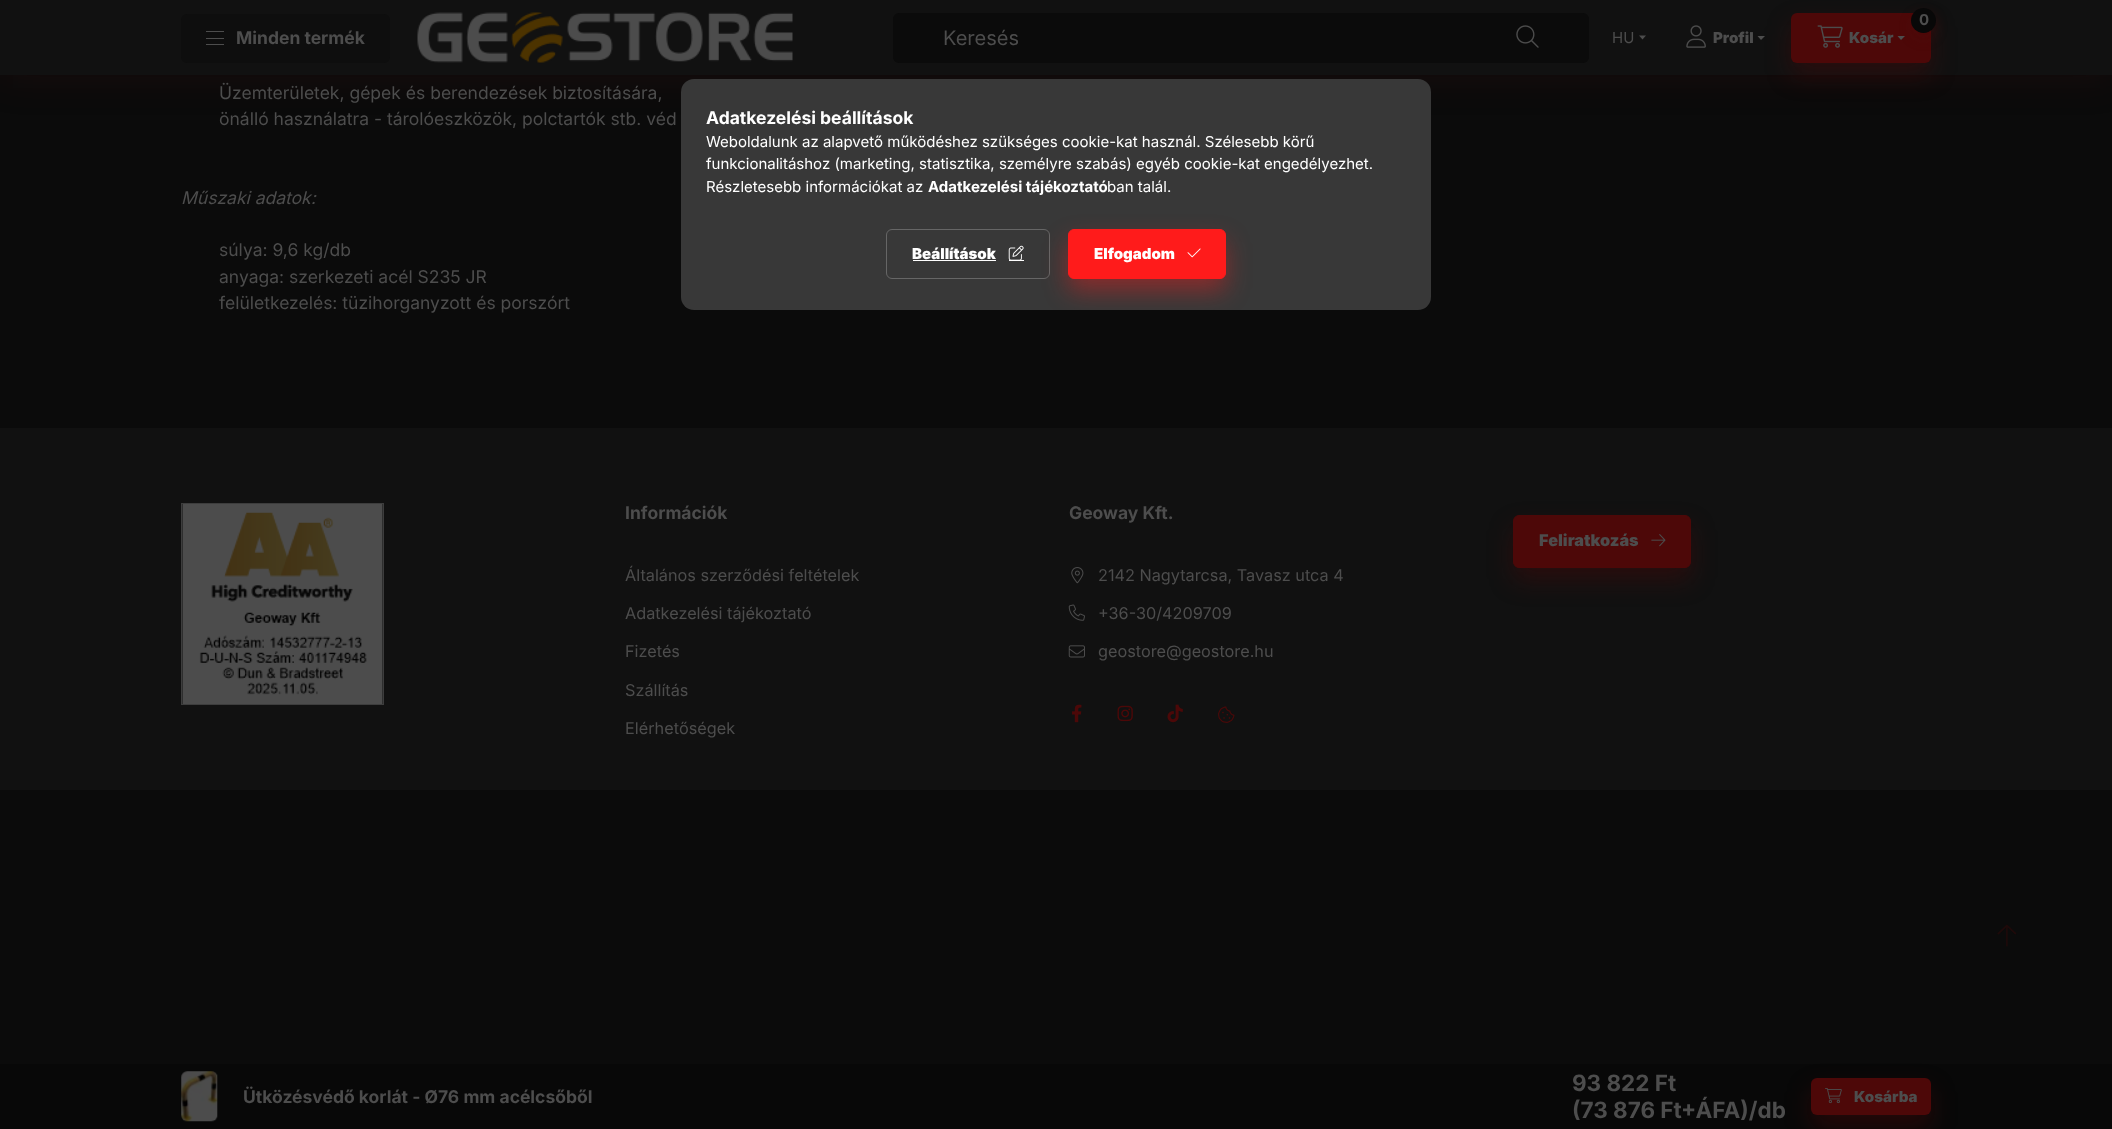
async function draw(canvas) {
  canvas.width = 2112;
  canvas.height = 1129;
  const ctx = canvas.getContext('2d');
  ctx.miterLimit = 4;
  ctx.fontKerning = 'normal';
  function label(s, x, y, font, color) {
    ctx.font = font;
    ctx.fillStyle = color;
    ctx.fillText(s, x, y);
  }
  function rect(x, y, w, h, color) {
    ctx.fillStyle = color;
    ctx.fillRect(x, y, w, h);
  }
  function roundedRect(x, y, w, h, r, color) {
    ctx.fillStyle = color;
    ctx.beginPath();
    ctx.roundRect(x, y, w, h, r);
    ctx.fill();
  }
  async function image(src, x, y, w, h) {
    const img = new Image();
    img.src = src;
    await img.decode();
    ctx.drawImage(img, x, y, w, h);
  }
  let path;

  rect(0, 0, 2112, 1129, '#0b0b0b');
  ctx.fillStyle = '#4d080833';
  ctx.filter = 'blur(19px)';
  ctx.beginPath();
  ctx.rect(0, 0, 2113, 75);
  ctx.fill();
  ctx.filter = 'none';
  rect(0, 0, 2112, 75, '#111');
  roundedRect(181, 14, 209, 49, 6, '#0e0e0e');
  rect(206, 31, 18, 1, '#4d4d4d');
  rect(206, 38, 18, 1, '#4d4d4d');
  rect(206, 44, 18, 1, '#4d4d4d');
  label('Minden termék', 236, 44, 'bold 17.5px Inter', '#4d4d4d');
  await image('assets/img1.png', 417, 12, 376, 51);
  roundedRect(893, 13, 696, 50, 6, '#0b0b0b');
  label('Keresés', 943, 45, '20px Inter', '#4d4d4d');
  await image('assets/img2.png', 1516, 25, 23, 23);
  label('HU', 1612, 43, '15px Inter', '#4d4d4d');
  path = new Path2D('M1639 35.5H1646L1642.5 39.5Z');
  ctx.fill(path);
  await image('assets/img3.png', 1686, 25, 20, 23);
  ctx.fillStyle = '#4d080866';
  ctx.filter = 'blur(12.5px)';
  ctx.beginPath();
  ctx.roundRect(1791, 25, 140, 50, 6);
  ctx.fill();
  ctx.filter = 'none';
  label('Profil', 1713, 43, '900 15px Inter', '#4d4d4d');
  path = new Path2D('M1757.5 36H1765L1761 40Z');
  ctx.fill(path);
  roundedRect(1791, 13, 140, 50, 6, '#4d0808');
  ctx.fillStyle = '#4d080866';
  ctx.filter = 'blur(6px)';
  ctx.beginPath();
  ctx.roundRect(1911, 14, 25, 25, 12.5);
  ctx.fill();
  ctx.filter = 'none';
  ctx.fillStyle = '#080808';
  ctx.beginPath();
  ctx.arc(1923.5, 20.5, 12.5, 0, 2 * Math.PI);
  ctx.fill();
  label('0', 1919, 25, 'bold 15px Inter', '#4d4d4d');
  await image('assets/img4.png', 1817, 25, 26, 23);
  label('Kosár', 1849, 43, '900 15px Inter', '#4d4d4d');
  path = new Path2D('M1897.5 36H1905L1901 40Z');
  ctx.fill(path);
  label('Üzemterületek, gépek és berendezések biztosítására,', 219, 99, '17.5px Inter', '#4d4d4d');
  label('önálló használatra - tárolóeszközök, polctartók stb. véd', 219, 125, '17.5px Inter', '#4d4d4d');
  label('Műszaki adatok:', 181, 204, 'italic 17.5px Inter', '#4d4d4d');
  label('súlya: 9,6 kg/db', 219, 256, '17.5px Inter', '#4d4d4d');
  label('anyaga: szerkezeti acél S235 JR', 219, 283, '17.5px Inter', '#4d4d4d');
  label('felületkezelés: tüzihorganyzott és porszórt', 219, 309, '17.5px Inter', '#4d4d4d');
  rect(0, 1064, 2112, 65, '#080808');
  await image('assets/img5.png', 181, 1071, 37, 51);
  label('Ütközésvédő korlát - Ø76 mm acélcsőből', 243, 1103, 'bold 17.5px Inter', '#4d4d4d');
  label('93 822 Ft', 1572, 1091, 'bold 22.5px Inter', '#4d4d4d');
  label('(73 876 Ft', 1572, 1118, 'bold 22.5px Inter', '#4d4d4d');
  label('+ÁFA)/db', 1681, 1118, 'bold 22.5px Inter', '#4d4d4d');
  ctx.fillStyle = '#4d080866';
  ctx.filter = 'blur(12.5px)';
  ctx.beginPath();
  ctx.roundRect(1811, 1090, 120, 38, 6);
  ctx.fill();
  ctx.filter = 'none';
  roundedRect(1811, 1078, 120, 37, 6, '#4d0808');
  await image('assets/img6.png', 1825, 1088, 17, 16);
  label('Kosárba', 1854, 1102, '900 15px Inter', '#4d4d4d');
  rect(0, 428, 2112, 362, '#111');
  ctx.strokeStyle = '#3d3d3d';
  ctx.strokeRect(181.5, 503.5, 202, 201);
  await image('assets/img7.png', 182, 504, 201, 200);
  label('Információk', 625, 519, 'bold 17.5px Inter', '#4d4d4d');
  label('Általános szerződési feltételek', 625, 581, '16.25px Inter', '#4d4d4d');
  label('Adatkezelési tájékoztató', 625, 619, '16.25px Inter', '#4d4d4d');
  label('Fizetés', 625, 657, '16.25px Inter', '#4d4d4d');
  label('Szállítás', 625, 696, '16.25px Inter', '#4d4d4d');
  label('Elérhetőségek', 625, 734, '16.25px Inter', '#4d4d4d');
  label('Geoway Kft.', 1069, 519, 'bold 17.5px Inter', '#4d4d4d');
  await image('assets/img8.png', 1071, 567, 13, 17);
  label('2142 Nagytarcsa, Tavasz utca 4', 1098, 581, '16.25px Inter', '#4d4d4d');
  await image('assets/img9.png', 1068, 604, 17, 17);
  label('+36-30/4209709', 1098, 619, '16.25px Inter', '#4d4d4d');
  await image('assets/img10.png', 1068, 645, 17, 13);
  label('geostore@geostore.hu', 1098, 657, '16.25px Inter', '#4d4d4d');
  await image('assets/img11.png', 1072, 704, 10, 19);
  await image('assets/img12.png', 1117, 705, 16, 17);
  await image('assets/img13.png', 1167, 704, 16, 19);
  await image('assets/img14.png', 1218, 706, 17, 17);
  ctx.fillStyle = '#4d080866';
  ctx.filter = 'blur(12.5px)';
  ctx.beginPath();
  ctx.roundRect(1513, 528, 178, 52, 6);
  ctx.fill();
  ctx.filter = 'none';
  ctx.fillStyle = '#4d0808';
  ctx.beginPath();
  ctx.roundRect(1513.5, 515.5, 177, 52, 5.5);
  ctx.fill();
  ctx.strokeStyle = '#4d0808';
  ctx.stroke();
  label('Feliratkozás', 1539, 546, '900 16.25px Inter', '#4d4d4d');
  await image('assets/img15.png', 1651, 534, 15, 13);
  roundedRect(681, 79, 750, 231, 13, '#383838');
  label('Adatkezelési beállítások', 706, 124, 'bold 17.5px Inter', '#fff');
  label('Weboldalunk az alapvető működéshez szükséges cookie-kat használ. Szélesebb körű', 706, 147, '15px Inter', '#fff');
  label('funkcionalitáshoz (marketing, statisztika, személyre szabás) egyéb cookie-kat engedélyezhet.', 706, 169, '15px Inter', '#fff');
  label('Részletesebb információkat az', 706, 192, '15px Inter', '#fff');
  label('Adatkezelési tájékoztató', 928, 192, 'bold 15px Inter', '#fff');
  label('ban talál.', 1107, 192, '15px Inter', '#fff');
  ctx.beginPath();
  ctx.roundRect(886.5, 229.5, 163, 49, 5.5);
  ctx.strokeStyle = '#666';
  ctx.stroke();
  label('Beállítások', 912, 259, '900 15px Inter', '#fff');
  rect(913, 260, 83, 1, '#fff');
  await image('assets/img16.png', 1008, 245, 16, 15);
  rect(1009, 260, 15, 1, '#fff');
  ctx.save();
  ctx.beginPath();
  ctx.roundRect(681, 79, 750, 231, 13);
  ctx.clip();
  ctx.fillStyle = '#ff1b1b66';
  ctx.filter = 'blur(12.5px)';
  ctx.beginPath();
  ctx.roundRect(1068, 241, 158, 50, 6);
  ctx.fill();
  ctx.filter = 'none';
  ctx.restore();
  ctx.fillStyle = '#ff1b1b';
  ctx.beginPath();
  ctx.roundRect(1068.5, 229.5, 157, 49, 5.5);
  ctx.fill();
  ctx.strokeStyle = '#ff1b1b';
  ctx.stroke();
  label('Elfogadom', 1094, 259, '900 15px Inter', '#fff');
  await image('assets/img17.png', 1187, 248, 14, 10);
  await image('assets/img18.png', 1997, 924, 20, 23);
}

draw(document.querySelector('canvas'));
